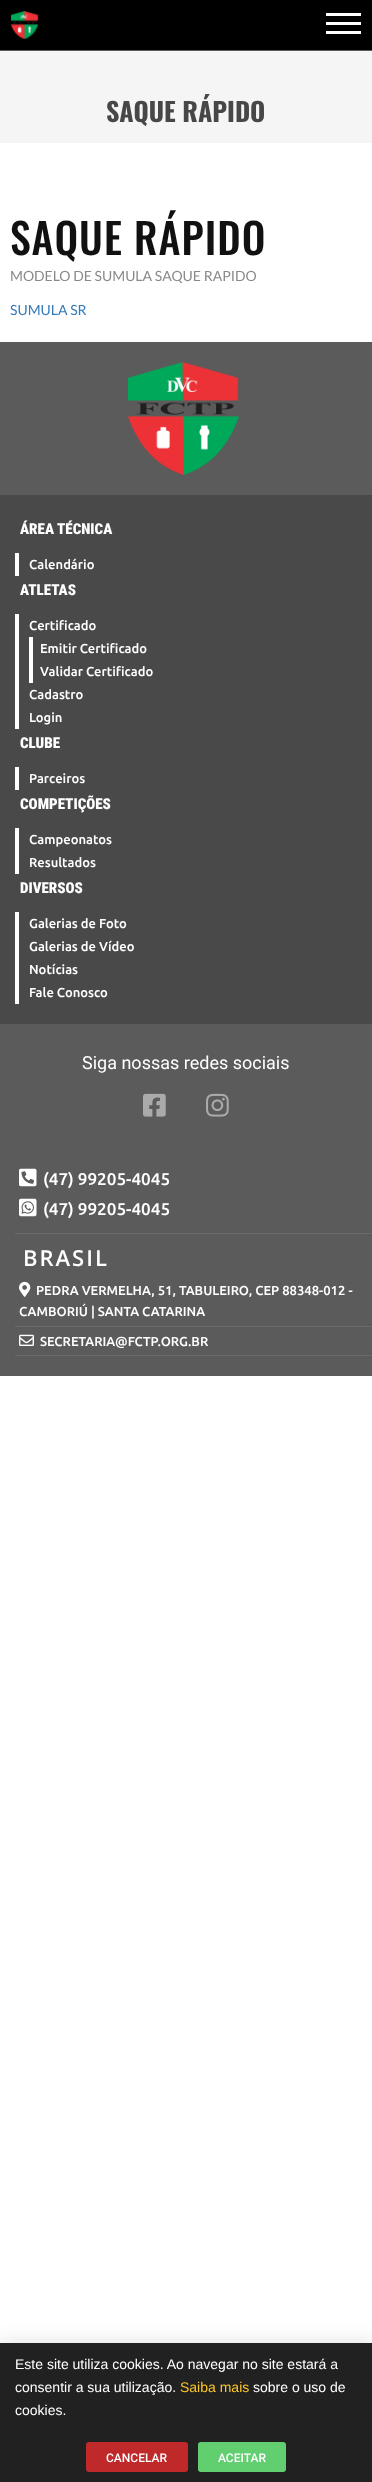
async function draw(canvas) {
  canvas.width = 372;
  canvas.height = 2482;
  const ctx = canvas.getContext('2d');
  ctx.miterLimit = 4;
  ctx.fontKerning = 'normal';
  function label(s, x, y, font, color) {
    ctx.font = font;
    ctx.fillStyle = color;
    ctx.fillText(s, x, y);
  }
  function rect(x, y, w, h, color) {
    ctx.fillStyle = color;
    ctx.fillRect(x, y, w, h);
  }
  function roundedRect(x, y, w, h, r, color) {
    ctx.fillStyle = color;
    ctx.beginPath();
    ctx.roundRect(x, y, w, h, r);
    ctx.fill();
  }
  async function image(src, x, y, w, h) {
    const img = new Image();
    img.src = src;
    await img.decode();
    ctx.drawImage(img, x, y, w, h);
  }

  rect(0, 0, 372, 2482, '#fff');
  rect(0, 50, 372, 1, '#5b5b5b');
  rect(0, 0, 372, 50, '#000');
  await image('assets/img1.png', 11, 11, 28, 28);
  rect(326, 22, 35, 3, '#fff');
  rect(326, 13, 35, 3, '#fff');
  rect(326, 31, 35, 3, '#fff');
  rect(0, 51, 372, 92, '#f5f5f5');
  label('SAQUE RÁPIDO', 106, 122, 'bold 26px Oswald', '#474747');
  ctx.letterSpacing = '1px';
  label('SAQUE RÁPIDO', 10, 255, '500 42px Oswald', '#111');
  ctx.letterSpacing = '0px';
  label('MODELO DE SUMULA SAQUE RAPIDO', 10, 281, '14px Lato', '#898989');
  label('SUMULA SR', 10, 315, '14px Lato', '#337ab7');
  rect(0, 342, 372, 1034, '#5b5b5b');
  await image('assets/img2.png', 128, 362, 111, 113);
  rect(0, 495, 372, 529, '#494949');
  label('ÁREA TÉCNICA', 20, 534, '900 15px Roboto Condensed', '#fff');
  rect(15, 553, 4, 23, '#fff');
  label('Calendário', 29, 569, '500 13px Ubuntu', '#fff');
  label('ATLETAS', 20, 595, '900 15px Roboto Condensed', '#fff');
  rect(15, 614, 4, 115, '#fff');
  label('Certificado', 29, 630, '500 13px Ubuntu', '#fff');
  rect(29, 637, 4, 46, '#fff');
  label('Emitir Certificado', 40, 653, '500 13px Ubuntu', '#fff');
  label('Validar Certificado', 40, 676, '500 13px Ubuntu', '#fff');
  label('Cadastro', 29, 699, '500 13px Ubuntu', '#fff');
  label('Login', 29, 722, '500 13px Ubuntu', '#fff');
  label('CLUBE', 20, 748, '900 15px Roboto Condensed', '#fff');
  rect(15, 767, 4, 23, '#fff');
  label('Parceiros', 29, 783, '500 13px Ubuntu', '#fff');
  label('COMPETIÇÕES', 20, 809, '900 15px Roboto Condensed', '#fff');
  rect(15, 828, 4, 46, '#fff');
  label('Campeonatos', 29, 844, '500 13px Ubuntu', '#fff');
  label('Resultados', 29, 867, '500 13px Ubuntu', '#fff');
  label('DIVERSOS', 20, 893, '900 15px Roboto Condensed', '#fff');
  rect(15, 912, 4, 92, '#fff');
  label('Galerias de Foto', 29, 928, '500 13px Ubuntu', '#fff');
  label('Galerias de Vídeo', 29, 951, '500 13px Ubuntu', '#fff');
  label('Notícias', 29, 974, '500 13px Ubuntu', '#fff');
  label('Fale Conosco', 29, 997, '500 13px Ubuntu', '#fff');
  label('Siga nossas redes sociais', 82, 1069, '18px Roboto', '#fff');
  await image('assets/img3.png', 143, 1093, 23, 24);
  await image('assets/img4.png', 206, 1093, 23, 24);
  rect(15, 1233, 357, 1, '#6a6a6a');
  await image('assets/img5.png', 19, 1168, 18, 19);
  label('(47) 99205-4045', 43, 1185, '500 17px Ubuntu', '#fff');
  await image('assets/img6.png', 19, 1198, 18, 19);
  label('(47) 99205-4045', 43, 1215, '500 17px Ubuntu', '#fff');
  ctx.letterSpacing = '2px';
  label('BRASIL', 23, 1266, '600 22px Open Sans', '#fff');
  rect(15, 1326, 357, 1, '#6a6a6a');
  await image('assets/img7.png', 19, 1281, 12, 16);
  ctx.letterSpacing = '0px';
  label('PEDRA VERMELHA, 51, TABULEIRO, CEP 88348-012 -', 36, 1295, '500 13px Ubuntu', '#fff');
  label('CAMBORIÚ | SANTA CATARINA', 19, 1316, '500 13px Ubuntu', '#fff');
  rect(15, 1355, 357, 1, '#6a6a6a');
  await image('assets/img8.png', 19, 1334, 15, 12);
  label('SECRETARIA@FCTP.ORG.BR', 40, 1346, '500 13px Ubuntu', '#fff');
  ctx.fillStyle = '#00000033';
  ctx.filter = 'blur(11.5px)';
  ctx.beginPath();
  ctx.rect(-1, 2348, 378, 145);
  ctx.fill();
  ctx.filter = 'none';
  rect(0, 2343, 372, 139, '#212121');
  label('Este site utiliza cookies. Ao navegar no site estará a', 15, 2369, '14px Liberation Sans', '#fff');
  label('consentir a sua utilização.', 15, 2392, '14px Liberation Sans', '#fff');
  label('Saiba mais', 180, 2392, '14px Liberation Sans', '#fec726');
  label('sobre o uso de', 253, 2392, '14px Liberation Sans', '#fff');
  label('cookies.', 15, 2415, '14px Liberation Sans', '#fff');
  roundedRect(86, 2442, 102, 30, 3, '#bf2929');
  label('CANCELAR', 106, 2462, '500 12px Roboto', '#fff');
  roundedRect(198, 2442, 88, 30, 3, '#61ce70');
  label('ACEITAR', 218, 2462, '500 12px Roboto', '#fff');
}

draw(document.querySelector('canvas'));
